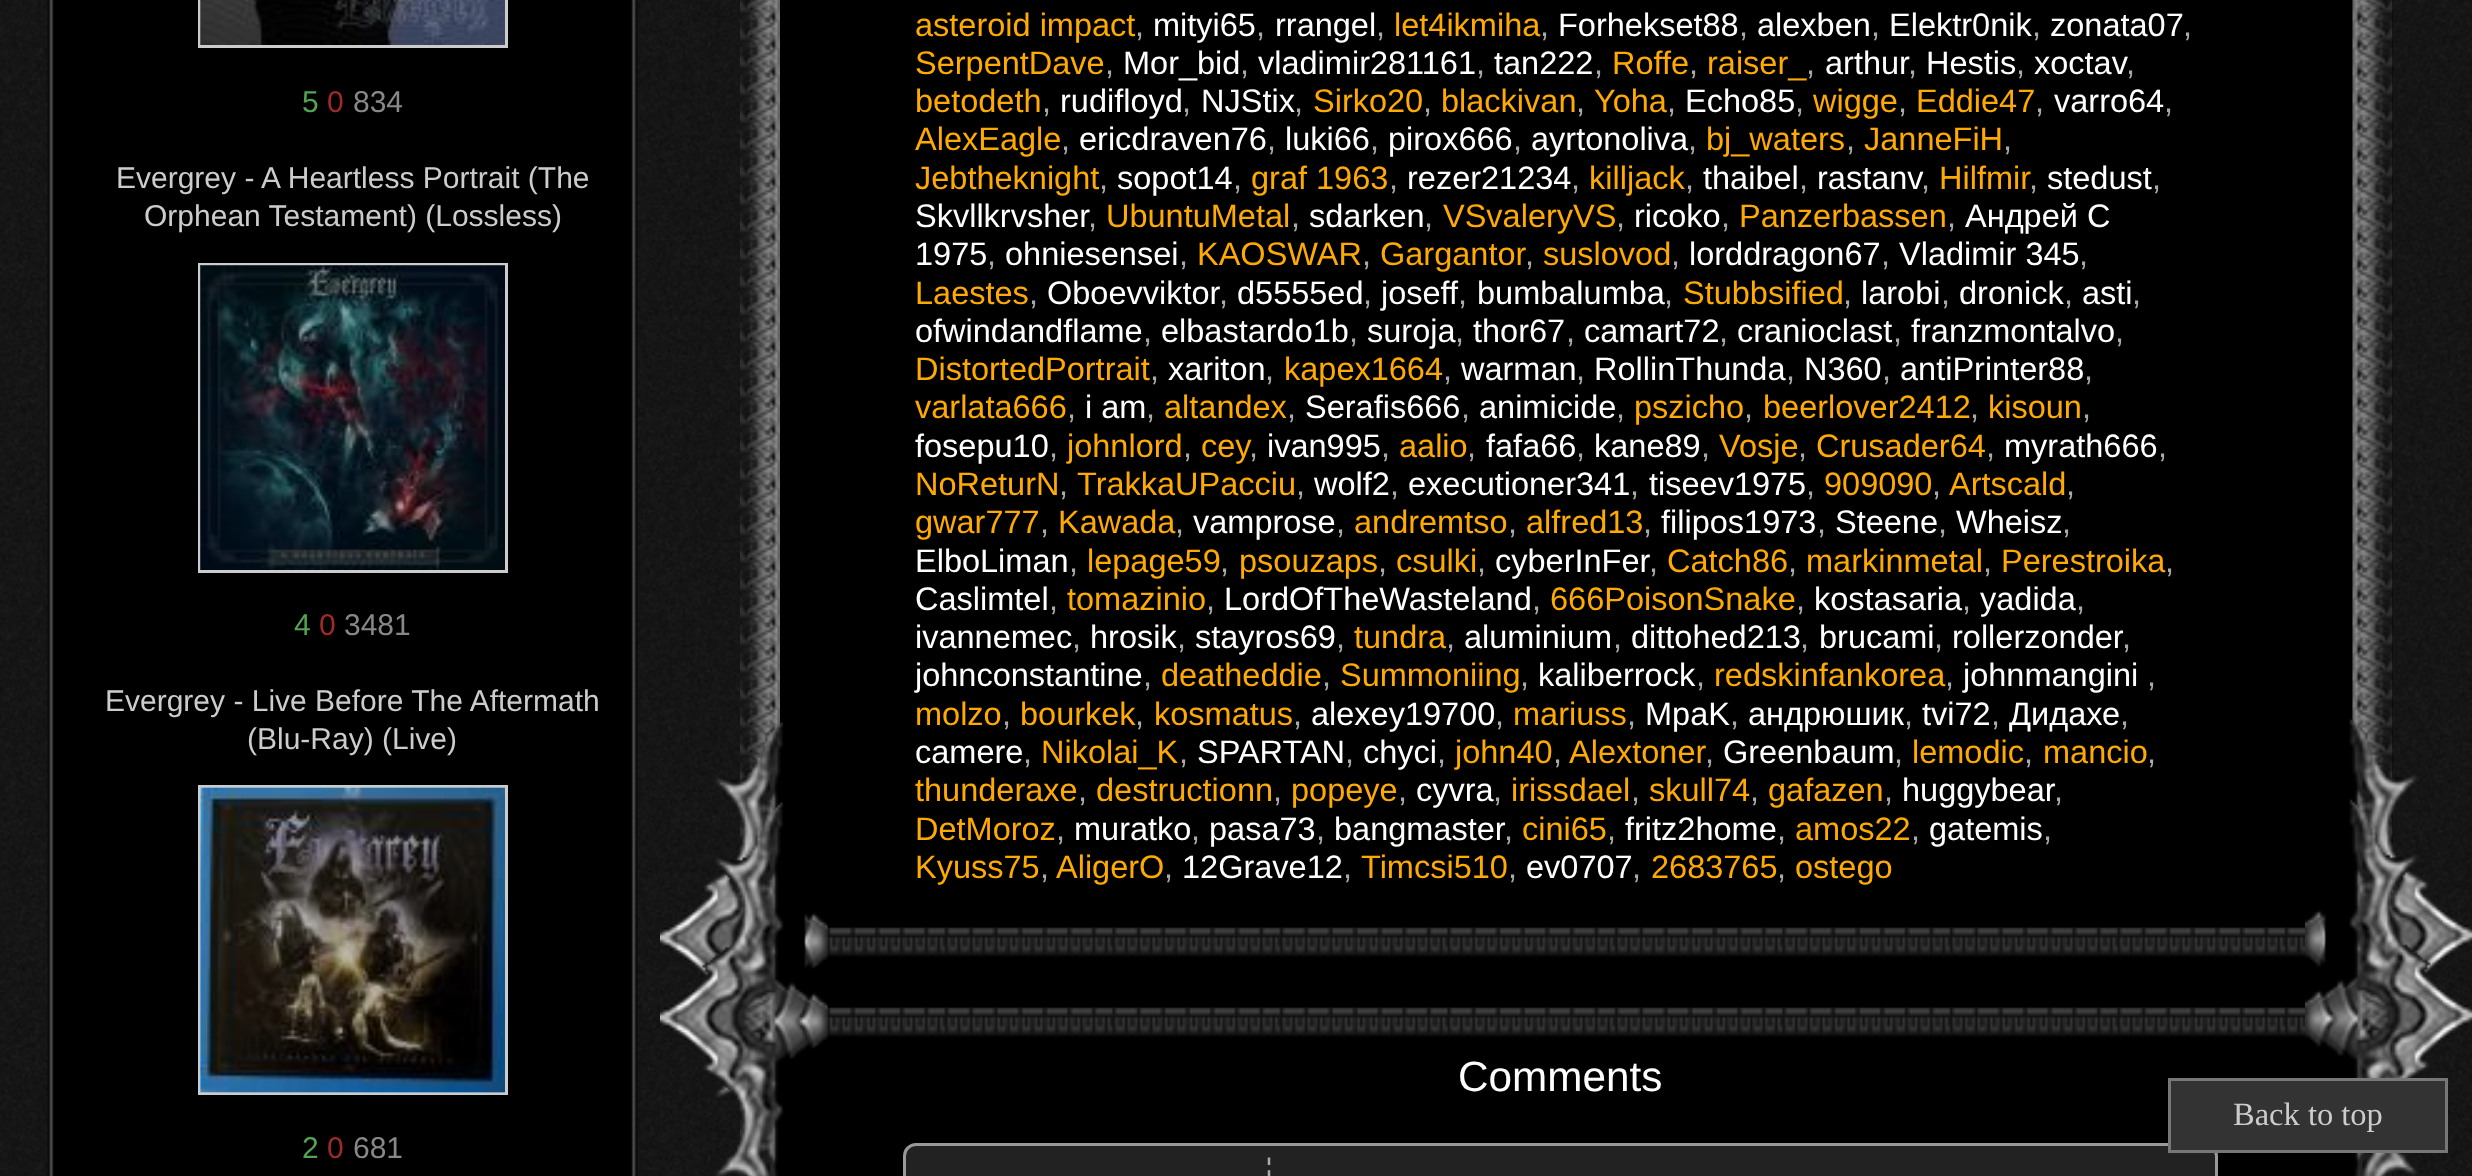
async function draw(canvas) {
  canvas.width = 2472;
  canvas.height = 1176;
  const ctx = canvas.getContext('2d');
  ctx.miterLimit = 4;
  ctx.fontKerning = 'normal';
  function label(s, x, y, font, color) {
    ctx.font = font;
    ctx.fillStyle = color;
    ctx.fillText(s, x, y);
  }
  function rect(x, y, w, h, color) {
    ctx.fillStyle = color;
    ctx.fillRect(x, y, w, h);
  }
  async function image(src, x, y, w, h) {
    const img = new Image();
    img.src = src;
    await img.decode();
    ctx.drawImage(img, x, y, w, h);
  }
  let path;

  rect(0, 0, 2472, 1176, '#fff');
  await image('assets/img1.png', 0, 0, 2472, 1176);
  await image('assets/img2.png', 47, 0, 591, 1176);
  ctx.strokeStyle = '#ccc';
  ctx.lineWidth = 3;
  ctx.strokeRect(199.5, -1.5, 307, 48);
  await image('assets/img3.png', 200, 0, 305, 45);
  label('5', 302, 112, '30px Liberation Sans', '#52a352');
  label('0', 327, 112, '30px Liberation Sans', '#a32929');
  label('834', 353, 112, '30px Liberation Sans', '#888');
  label('Evergrey - A Heartless Portrait (The', 116, 188, '30px Liberation Sans', '#ccc');
  label('Orphean Testament) (Lossless)', 144, 226, '30px Liberation Sans', '#ccc');
  ctx.strokeRect(199.5, 264.5, 307, 307);
  await image('assets/img4.png', 200, 265, 305, 305);
  label('4', 294, 635, '30px Liberation Sans', '#52a352');
  label('0', 319, 635, '30px Liberation Sans', '#a32929');
  label('3481', 344, 635, '30px Liberation Sans', '#888');
  label('Evergrey - Live Before The Aftermath', 105, 711, '30px Liberation Sans', '#ccc');
  label('(Blu-Ray) (Live)', 247, 749, '30px Liberation Sans', '#ccc');
  ctx.strokeRect(199.5, 786.5, 307, 307);
  await image('assets/img5.png', 200, 787, 305, 306);
  label('2', 302, 1158, '30px Liberation Sans', '#52a352');
  label('0', 327, 1158, '30px Liberation Sans', '#a32929');
  label('681', 353, 1158, '30px Liberation Sans', '#888');
  rect(780, 0, 1613, 1176, '#000');
  await image('assets/img6.png', 740, 0, 40, 1176);
  await image('assets/img7.png', 2352, 0, 41, 1176);
  label('asteroid impact', 915, 36, '32.5px Liberation Sans', '#fa0');
  label(',', 1135, 36, '32.5px Liberation Sans', '#aaa');
  label('mityi65', 1153, 36, '32.5px Liberation Sans', '#fff');
  label(',', 1256, 36, '32.5px Liberation Sans', '#aaa');
  label('rrangel', 1275, 36, '32.5px Liberation Sans', '#fff');
  label(',', 1376, 36, '32.5px Liberation Sans', '#aaa');
  label('let4ikmiha', 1394, 36, '32.5px Liberation Sans', '#fa0');
  label(',', 1540, 36, '32.5px Liberation Sans', '#aaa');
  label('Forhekset88', 1558, 36, '32.5px Liberation Sans', '#fff');
  label(',', 1739, 36, '32.5px Liberation Sans', '#aaa');
  label('alexben', 1757, 36, '32.5px Liberation Sans', '#fff');
  label(',', 1871, 36, '32.5px Liberation Sans', '#aaa');
  label('Elektr0nik', 1889, 36, '32.5px Liberation Sans', '#fff');
  label(',', 2032, 36, '32.5px Liberation Sans', '#aaa');
  label('zonata07', 2050, 36, '32.5px Liberation Sans', '#fff');
  label(',', 2183, 36, '32.5px Liberation Sans', '#aaa');
  label('SerpentDave', 915, 74, '32.5px Liberation Sans', '#fa0');
  label(',', 1105, 74, '32.5px Liberation Sans', '#aaa');
  label('Mor_bid', 1123, 74, '32.5px Liberation Sans', '#fff');
  label(',', 1240, 74, '32.5px Liberation Sans', '#aaa');
  label('vladimir281161', 1258, 74, '32.5px Liberation Sans', '#fff');
  label(',', 1476, 74, '32.5px Liberation Sans', '#aaa');
  label('tan222', 1494, 74, '32.5px Liberation Sans', '#fff');
  label(',', 1594, 74, '32.5px Liberation Sans', '#aaa');
  label('Roffe', 1612, 74, '32.5px Liberation Sans', '#fa0');
  label(',', 1689, 74, '32.5px Liberation Sans', '#aaa');
  label('raiser_', 1707, 74, '32.5px Liberation Sans', '#fa0');
  label(',', 1806, 74, '32.5px Liberation Sans', '#aaa');
  label('arthur', 1825, 74, '32.5px Liberation Sans', '#fff');
  label(',', 1908, 74, '32.5px Liberation Sans', '#aaa');
  label('Hestis', 1926, 74, '32.5px Liberation Sans', '#fff');
  label(',', 2016, 74, '32.5px Liberation Sans', '#aaa');
  label('xoctav', 2034, 74, '32.5px Liberation Sans', '#fff');
  label(',', 2126, 74, '32.5px Liberation Sans', '#aaa');
  label('betodeth', 915, 112, '32.5px Liberation Sans', '#fa0');
  label(',', 1042, 112, '32.5px Liberation Sans', '#aaa');
  label('rudifloyd', 1060, 112, '32.5px Liberation Sans', '#fff');
  label(',', 1182, 112, '32.5px Liberation Sans', '#aaa');
  label('NJStix', 1201, 112, '32.5px Liberation Sans', '#fff');
  label(',', 1294, 112, '32.5px Liberation Sans', '#aaa');
  label('Sirko20', 1313, 112, '32.5px Liberation Sans', '#fa0');
  label(',', 1423, 112, '32.5px Liberation Sans', '#aaa');
  label('blackivan', 1441, 112, '32.5px Liberation Sans', '#fa0');
  label(',', 1576, 112, '32.5px Liberation Sans', '#aaa');
  label('Yoha', 1594, 112, '32.5px Liberation Sans', '#fa0');
  label(',', 1667, 112, '32.5px Liberation Sans', '#aaa');
  label('Echo85', 1685, 112, '32.5px Liberation Sans', '#fff');
  label(',', 1795, 112, '32.5px Liberation Sans', '#aaa');
  label('wigge', 1813, 112, '32.5px Liberation Sans', '#fa0');
  label(',', 1898, 112, '32.5px Liberation Sans', '#aaa');
  label('Eddie47', 1916, 112, '32.5px Liberation Sans', '#fa0');
  label(',', 2035, 112, '32.5px Liberation Sans', '#aaa');
  label('varro64', 2054, 112, '32.5px Liberation Sans', '#fff');
  label(',', 2164, 112, '32.5px Liberation Sans', '#aaa');
  label('AlexEagle', 915, 150, '32.5px Liberation Sans', '#fa0');
  label(',', 1061, 150, '32.5px Liberation Sans', '#aaa');
  label('ericdraven76', 1079, 150, '32.5px Liberation Sans', '#fff');
  label(',', 1267, 150, '32.5px Liberation Sans', '#aaa');
  label('luki66', 1285, 150, '32.5px Liberation Sans', '#fff');
  label(',', 1370, 150, '32.5px Liberation Sans', '#aaa');
  label('pirox666', 1388, 150, '32.5px Liberation Sans', '#fff');
  label(',', 1513, 150, '32.5px Liberation Sans', '#aaa');
  label('ayrtonoliva', 1531, 150, '32.5px Liberation Sans', '#fff');
  label(',', 1688, 150, '32.5px Liberation Sans', '#aaa');
  label('bj_waters', 1706, 150, '32.5px Liberation Sans', '#fa0');
  label(',', 1846, 150, '32.5px Liberation Sans', '#aaa');
  label('JanneFiH', 1864, 150, '32.5px Liberation Sans', '#fa0');
  label(',', 2003, 150, '32.5px Liberation Sans', '#aaa');
  label('Jebtheknight', 915, 189, '32.5px Liberation Sans', '#fa0');
  label(',', 1099, 189, '32.5px Liberation Sans', '#aaa');
  label('sopot14', 1117, 189, '32.5px Liberation Sans', '#fff');
  label(',', 1233, 189, '32.5px Liberation Sans', '#aaa');
  label('graf 1963', 1251, 189, '32.5px Liberation Sans', '#fa0');
  label(',', 1389, 189, '32.5px Liberation Sans', '#aaa');
  label('rezer21234', 1407, 189, '32.5px Liberation Sans', '#fff');
  label(',', 1571, 189, '32.5px Liberation Sans', '#aaa');
  label('killjack', 1589, 189, '32.5px Liberation Sans', '#fa0');
  label(',', 1685, 189, '32.5px Liberation Sans', '#aaa');
  label('thaibel', 1703, 189, '32.5px Liberation Sans', '#fff');
  label(',', 1799, 189, '32.5px Liberation Sans', '#aaa');
  label('rastanv', 1817, 189, '32.5px Liberation Sans', '#fff');
  label(',', 1921, 189, '32.5px Liberation Sans', '#aaa');
  label('Hilfmir', 1939, 189, '32.5px Liberation Sans', '#fa0');
  label(',', 2029, 189, '32.5px Liberation Sans', '#aaa');
  label('stedust', 2047, 189, '32.5px Liberation Sans', '#fff');
  label(',', 2152, 189, '32.5px Liberation Sans', '#aaa');
  label('Skvllkrvsher', 915, 227, '32.5px Liberation Sans', '#fff');
  label(',', 1088, 227, '32.5px Liberation Sans', '#aaa');
  label('UbuntuMetal', 1106, 227, '32.5px Liberation Sans', '#fa0');
  label(',', 1291, 227, '32.5px Liberation Sans', '#aaa');
  label('sdarken', 1309, 227, '32.5px Liberation Sans', '#fff');
  label(',', 1424, 227, '32.5px Liberation Sans', '#aaa');
  label('VSvaleryVS', 1443, 227, '32.5px Liberation Sans', '#fa0');
  label(',', 1616, 227, '32.5px Liberation Sans', '#aaa');
  label('ricoko', 1634, 227, '32.5px Liberation Sans', '#fff');
  label(',', 1721, 227, '32.5px Liberation Sans', '#aaa');
  label('Panzerbassen', 1739, 227, '32.5px Liberation Sans', '#fa0');
  label(',', 1947, 227, '32.5px Liberation Sans', '#aaa');
  label('Андрей С', 1965, 227, '32.5px Liberation Sans', '#fff');
  label('1975', 915, 265, '32.5px Liberation Sans', '#fff');
  label(',', 987, 265, '32.5px Liberation Sans', '#aaa');
  label('ohniesensei', 1005, 265, '32.5px Liberation Sans', '#fff');
  label(',', 1179, 265, '32.5px Liberation Sans', '#aaa');
  label('KAOSWAR', 1197, 265, '32.5px Liberation Sans', '#fa0');
  label(',', 1362, 265, '32.5px Liberation Sans', '#aaa');
  label('Gargantor', 1380, 265, '32.5px Liberation Sans', '#fa0');
  label(',', 1525, 265, '32.5px Liberation Sans', '#aaa');
  label('suslovod', 1543, 265, '32.5px Liberation Sans', '#fa0');
  label(',', 1671, 265, '32.5px Liberation Sans', '#aaa');
  label('lorddragon67', 1689, 265, '32.5px Liberation Sans', '#fff');
  label(',', 1881, 265, '32.5px Liberation Sans', '#aaa');
  label('Vladimir 345', 1899, 265, '32.5px Liberation Sans', '#fff');
  label(',', 2079, 265, '32.5px Liberation Sans', '#aaa');
  label('Laestes', 915, 304, '32.5px Liberation Sans', '#fa0');
  label(',', 1029, 304, '32.5px Liberation Sans', '#aaa');
  label('Oboevviktor', 1047, 304, '32.5px Liberation Sans', '#fff');
  label(',', 1219, 304, '32.5px Liberation Sans', '#aaa');
  label('d5555ed', 1237, 304, '32.5px Liberation Sans', '#fff');
  label(',', 1363, 304, '32.5px Liberation Sans', '#aaa');
  label('joseff', 1381, 304, '32.5px Liberation Sans', '#fff');
  label(',', 1458, 304, '32.5px Liberation Sans', '#aaa');
  label('bumbalumba', 1477, 304, '32.5px Liberation Sans', '#fff');
  label(',', 1664, 304, '32.5px Liberation Sans', '#aaa');
  label('Stubbsified', 1683, 304, '32.5px Liberation Sans', '#fa0');
  label(',', 1843, 304, '32.5px Liberation Sans', '#aaa');
  label('larobi', 1861, 304, '32.5px Liberation Sans', '#fff');
  label(',', 1941, 304, '32.5px Liberation Sans', '#aaa');
  label('dronick', 1959, 304, '32.5px Liberation Sans', '#fff');
  label(',', 2064, 304, '32.5px Liberation Sans', '#aaa');
  label('asti', 2082, 304, '32.5px Liberation Sans', '#fff');
  label(',', 2132, 304, '32.5px Liberation Sans', '#aaa');
  label('ofwindandflame', 915, 342, '32.5px Liberation Sans', '#fff');
  label(',', 1143, 342, '32.5px Liberation Sans', '#aaa');
  label('elbastardo1b', 1161, 342, '32.5px Liberation Sans', '#fff');
  label(',', 1349, 342, '32.5px Liberation Sans', '#aaa');
  label('suroja', 1367, 342, '32.5px Liberation Sans', '#fff');
  label(',', 1455, 342, '32.5px Liberation Sans', '#aaa');
  label('thor67', 1473, 342, '32.5px Liberation Sans', '#fff');
  label(',', 1566, 342, '32.5px Liberation Sans', '#aaa');
  label('camart72', 1584, 342, '32.5px Liberation Sans', '#fff');
  label(',', 1719, 342, '32.5px Liberation Sans', '#aaa');
  label('cranioclast', 1737, 342, '32.5px Liberation Sans', '#fff');
  label(',', 1893, 342, '32.5px Liberation Sans', '#aaa');
  label('franzmontalvo', 1911, 342, '32.5px Liberation Sans', '#fff');
  label(',', 2115, 342, '32.5px Liberation Sans', '#aaa');
  label('DistortedPortrait', 915, 380, '32.5px Liberation Sans', '#fa0');
  label(',', 1150, 380, '32.5px Liberation Sans', '#aaa');
  label('xariton', 1168, 380, '32.5px Liberation Sans', '#fff');
  label(',', 1265, 380, '32.5px Liberation Sans', '#aaa');
  label('kapex1664', 1284, 380, '32.5px Liberation Sans', '#fa0');
  label(',', 1443, 380, '32.5px Liberation Sans', '#aaa');
  label('warman', 1461, 380, '32.5px Liberation Sans', '#fff');
  label(',', 1576, 380, '32.5px Liberation Sans', '#aaa');
  label('RollinThunda', 1594, 380, '32.5px Liberation Sans', '#fff');
  label(',', 1786, 380, '32.5px Liberation Sans', '#aaa');
  label('N360', 1804, 380, '32.5px Liberation Sans', '#fff');
  label(',', 1882, 380, '32.5px Liberation Sans', '#aaa');
  label('antiPrinter88', 1900, 380, '32.5px Liberation Sans', '#fff');
  label(',', 2084, 380, '32.5px Liberation Sans', '#aaa');
  label('varlata666', 915, 418, '32.5px Liberation Sans', '#fa0');
  label(',', 1067, 418, '32.5px Liberation Sans', '#aaa');
  label('i am', 1085, 418, '32.5px Liberation Sans', '#fff');
  label(',', 1146, 418, '32.5px Liberation Sans', '#aaa');
  label('altandex', 1164, 418, '32.5px Liberation Sans', '#fa0');
  label(',', 1287, 418, '32.5px Liberation Sans', '#aaa');
  label('Serafis666', 1305, 418, '32.5px Liberation Sans', '#fff');
  label(',', 1461, 418, '32.5px Liberation Sans', '#aaa');
  label('animicide', 1479, 418, '32.5px Liberation Sans', '#fff');
  label(',', 1616, 418, '32.5px Liberation Sans', '#aaa');
  label('pszicho', 1634, 418, '32.5px Liberation Sans', '#fa0');
  label(',', 1744, 418, '32.5px Liberation Sans', '#aaa');
  label('beerlover2412', 1763, 418, '32.5px Liberation Sans', '#fa0');
  label(',', 1970, 418, '32.5px Liberation Sans', '#aaa');
  label('kisoun', 1988, 418, '32.5px Liberation Sans', '#fa0');
  label(',', 2082, 418, '32.5px Liberation Sans', '#aaa');
  label('fosepu10', 915, 457, '32.5px Liberation Sans', '#fff');
  label(',', 1049, 457, '32.5px Liberation Sans', '#aaa');
  label('johnlord', 1067, 457, '32.5px Liberation Sans', '#fa0');
  label(',', 1183, 457, '32.5px Liberation Sans', '#aaa');
  label('cey', 1201, 457, '32.5px Liberation Sans', '#fa0');
  label(',', 1249, 457, '32.5px Liberation Sans', '#aaa');
  label('ivan995', 1267, 457, '32.5px Liberation Sans', '#fff');
  label(',', 1381, 457, '32.5px Liberation Sans', '#aaa');
  label('aalio', 1399, 457, '32.5px Liberation Sans', '#fa0');
  label(',', 1467, 457, '32.5px Liberation Sans', '#aaa');
  label('fafa66', 1486, 457, '32.5px Liberation Sans', '#fff');
  label(',', 1576, 457, '32.5px Liberation Sans', '#aaa');
  label('kane89', 1594, 457, '32.5px Liberation Sans', '#fff');
  label(',', 1701, 457, '32.5px Liberation Sans', '#aaa');
  label('Vosje', 1719, 457, '32.5px Liberation Sans', '#fa0');
  label(',', 1798, 457, '32.5px Liberation Sans', '#aaa');
  label('Crusader64', 1816, 457, '32.5px Liberation Sans', '#fa0');
  label(',', 1986, 457, '32.5px Liberation Sans', '#aaa');
  label('myrath666', 2004, 457, '32.5px Liberation Sans', '#fff');
  label(',', 2158, 457, '32.5px Liberation Sans', '#aaa');
  label('NoReturN', 915, 495, '32.5px Liberation Sans', '#fa0');
  label(',', 1059, 495, '32.5px Liberation Sans', '#aaa');
  label('TrakkaUPacciu', 1077, 495, '32.5px Liberation Sans', '#fa0');
  label(',', 1296, 495, '32.5px Liberation Sans', '#aaa');
  label('wolf2', 1314, 495, '32.5px Liberation Sans', '#fff');
  label(',', 1390, 495, '32.5px Liberation Sans', '#aaa');
  label('executioner341', 1408, 495, '32.5px Liberation Sans', '#fff');
  label(',', 1630, 495, '32.5px Liberation Sans', '#aaa');
  label('tiseev1975', 1649, 495, '32.5px Liberation Sans', '#fff');
  label(',', 1806, 495, '32.5px Liberation Sans', '#aaa');
  label('909090', 1824, 495, '32.5px Liberation Sans', '#fa0');
  label(',', 1932, 495, '32.5px Liberation Sans', '#aaa');
  label('Artscald', 1949, 495, '32.5px Liberation Sans', '#fa0');
  label(',', 2066, 495, '32.5px Liberation Sans', '#aaa');
  label('gwar777', 915, 533, '32.5px Liberation Sans', '#fa0');
  label(',', 1040, 533, '32.5px Liberation Sans', '#aaa');
  label('Kawada', 1058, 533, '32.5px Liberation Sans', '#fa0');
  label(',', 1175, 533, '32.5px Liberation Sans', '#aaa');
  label('vamprose', 1193, 533, '32.5px Liberation Sans', '#fff');
  label(',', 1336, 533, '32.5px Liberation Sans', '#aaa');
  label('andremtso', 1354, 533, '32.5px Liberation Sans', '#fa0');
  label(',', 1508, 533, '32.5px Liberation Sans', '#aaa');
  label('alfred13', 1526, 533, '32.5px Liberation Sans', '#fa0');
  label(',', 1643, 533, '32.5px Liberation Sans', '#aaa');
  label('filipos1973', 1661, 533, '32.5px Liberation Sans', '#fff');
  label(',', 1817, 533, '32.5px Liberation Sans', '#aaa');
  label('Steene', 1835, 533, '32.5px Liberation Sans', '#fff');
  label(',', 1938, 533, '32.5px Liberation Sans', '#aaa');
  label('Wheisz', 1956, 533, '32.5px Liberation Sans', '#fff');
  label(',', 2062, 533, '32.5px Liberation Sans', '#aaa');
  label('ElboLiman', 915, 572, '32.5px Liberation Sans', '#fff');
  label(',', 1069, 572, '32.5px Liberation Sans', '#aaa');
  label('lepage59', 1087, 572, '32.5px Liberation Sans', '#fa0');
  label(',', 1220, 572, '32.5px Liberation Sans', '#aaa');
  label('psouzaps', 1239, 572, '32.5px Liberation Sans', '#fa0');
  label(',', 1378, 572, '32.5px Liberation Sans', '#aaa');
  label('csulki', 1396, 572, '32.5px Liberation Sans', '#fa0');
  label(',', 1477, 572, '32.5px Liberation Sans', '#aaa');
  label('cyberInFer', 1495, 572, '32.5px Liberation Sans', '#fff');
  label(',', 1649, 572, '32.5px Liberation Sans', '#aaa');
  label('Catch86', 1667, 572, '32.5px Liberation Sans', '#fa0');
  label(',', 1788, 572, '32.5px Liberation Sans', '#aaa');
  label('markinmetal', 1806, 572, '32.5px Liberation Sans', '#fa0');
  label(',', 1983, 572, '32.5px Liberation Sans', '#aaa');
  label('Perestroika', 2001, 572, '32.5px Liberation Sans', '#fa0');
  label(',', 2165, 572, '32.5px Liberation Sans', '#aaa');
  label('Caslimtel', 915, 610, '32.5px Liberation Sans', '#fff');
  label(',', 1049, 610, '32.5px Liberation Sans', '#aaa');
  label('tomazinio', 1067, 610, '32.5px Liberation Sans', '#fa0');
  label(',', 1206, 610, '32.5px Liberation Sans', '#aaa');
  label('LordOfTheWasteland', 1224, 610, '32.5px Liberation Sans', '#fff');
  label(',', 1532, 610, '32.5px Liberation Sans', '#aaa');
  label('666PoisonSnake', 1550, 610, '32.5px Liberation Sans', '#fa0');
  label(',', 1796, 610, '32.5px Liberation Sans', '#aaa');
  label('kostasaria', 1814, 610, '32.5px Liberation Sans', '#fff');
  label(',', 1962, 610, '32.5px Liberation Sans', '#aaa');
  label('yadida', 1980, 610, '32.5px Liberation Sans', '#fff');
  label(',', 2076, 610, '32.5px Liberation Sans', '#aaa');
  label('ivannemec', 915, 648, '32.5px Liberation Sans', '#fff');
  label(',', 1072, 648, '32.5px Liberation Sans', '#aaa');
  label('hrosik', 1090, 648, '32.5px Liberation Sans', '#fff');
  label(',', 1177, 648, '32.5px Liberation Sans', '#aaa');
  label('stayros69', 1195, 648, '32.5px Liberation Sans', '#fff');
  label(',', 1336, 648, '32.5px Liberation Sans', '#aaa');
  label('tundra', 1354, 648, '32.5px Liberation Sans', '#fa0');
  label(',', 1446, 648, '32.5px Liberation Sans', '#aaa');
  label('aluminium', 1464, 648, '32.5px Liberation Sans', '#fff');
  label(',', 1613, 648, '32.5px Liberation Sans', '#aaa');
  label('dittohed213', 1631, 648, '32.5px Liberation Sans', '#fff');
  label(',', 1800, 648, '32.5px Liberation Sans', '#aaa');
  label('brucami', 1819, 648, '32.5px Liberation Sans', '#fff');
  label(',', 1934, 648, '32.5px Liberation Sans', '#aaa');
  label('rollerzonder', 1952, 648, '32.5px Liberation Sans', '#fff');
  label(',', 2122, 648, '32.5px Liberation Sans', '#aaa');
  label('johnconstantine', 915, 686, '32.5px Liberation Sans', '#fff');
  label(',', 1143, 686, '32.5px Liberation Sans', '#aaa');
  label('deatheddie', 1161, 686, '32.5px Liberation Sans', '#fa0');
  label(',', 1322, 686, '32.5px Liberation Sans', '#aaa');
  label('Summoniing', 1340, 686, '32.5px Liberation Sans', '#fa0');
  label(',', 1520, 686, '32.5px Liberation Sans', '#aaa');
  label('kaliberrock', 1538, 686, '32.5px Liberation Sans', '#fff');
  label(',', 1696, 686, '32.5px Liberation Sans', '#aaa');
  label('redskinfankorea', 1714, 686, '32.5px Liberation Sans', '#fa0');
  label(',', 1945, 686, '32.5px Liberation Sans', '#aaa');
  label('johnmangini', 1963, 686, '32.5px Liberation Sans', '#fff');
  label(',', 2147, 686, '32.5px Liberation Sans', '#aaa');
  label('molzo', 915, 725, '32.5px Liberation Sans', '#fa0');
  label(',', 1002, 725, '32.5px Liberation Sans', '#aaa');
  label('bourkek', 1020, 725, '32.5px Liberation Sans', '#fa0');
  label(',', 1135, 725, '32.5px Liberation Sans', '#aaa');
  label('kosmatus', 1154, 725, '32.5px Liberation Sans', '#fa0');
  label(',', 1293, 725, '32.5px Liberation Sans', '#aaa');
  label('alexey19700', 1311, 725, '32.5px Liberation Sans', '#fff');
  label(',', 1495, 725, '32.5px Liberation Sans', '#aaa');
  label('mariuss', 1513, 725, '32.5px Liberation Sans', '#fa0');
  label(',', 1627, 725, '32.5px Liberation Sans', '#aaa');
  label('MpaK', 1645, 725, '32.5px Liberation Sans', '#fff');
  label(',', 1730, 725, '32.5px Liberation Sans', '#aaa');
  label('андрюшик', 1748, 725, '32.5px Liberation Sans', '#fff');
  label(',', 1904, 725, '32.5px Liberation Sans', '#aaa');
  label('tvi72', 1922, 725, '32.5px Liberation Sans', '#fff');
  label(',', 1991, 725, '32.5px Liberation Sans', '#aaa');
  label('Дидахе', 2009, 725, '32.5px Liberation Sans', '#fff');
  label(',', 2120, 725, '32.5px Liberation Sans', '#aaa');
  label('camere', 915, 763, '32.5px Liberation Sans', '#fff');
  label(',', 1023, 763, '32.5px Liberation Sans', '#aaa');
  label('Nikolai_K', 1041, 763, '32.5px Liberation Sans', '#fa0');
  label(',', 1179, 763, '32.5px Liberation Sans', '#aaa');
  label('SPARTAN', 1197, 763, '32.5px Liberation Sans', '#fff');
  label(',', 1345, 763, '32.5px Liberation Sans', '#aaa');
  label('chyci', 1363, 763, '32.5px Liberation Sans', '#fff');
  label(',', 1437, 763, '32.5px Liberation Sans', '#aaa');
  label('john40', 1455, 763, '32.5px Liberation Sans', '#fa0');
  label(',', 1553, 763, '32.5px Liberation Sans', '#aaa');
  label('Alextoner', 1569, 763, '32.5px Liberation Sans', '#fa0');
  label(',', 1705, 763, '32.5px Liberation Sans', '#aaa');
  label('Greenbaum', 1723, 763, '32.5px Liberation Sans', '#fff');
  label(',', 1894, 763, '32.5px Liberation Sans', '#aaa');
  label('lemodic', 1912, 763, '32.5px Liberation Sans', '#fa0');
  label(',', 2024, 763, '32.5px Liberation Sans', '#aaa');
  label('mancio', 2043, 763, '32.5px Liberation Sans', '#fa0');
  label(',', 2147, 763, '32.5px Liberation Sans', '#aaa');
  label('thunderaxe', 915, 801, '32.5px Liberation Sans', '#fa0');
  label(',', 1078, 801, '32.5px Liberation Sans', '#aaa');
  label('destructionn', 1096, 801, '32.5px Liberation Sans', '#fa0');
  label(',', 1273, 801, '32.5px Liberation Sans', '#aaa');
  label('popeye', 1291, 801, '32.5px Liberation Sans', '#fa0');
  label(',', 1398, 801, '32.5px Liberation Sans', '#aaa');
  label('cyvra', 1416, 801, '32.5px Liberation Sans', '#fff');
  label(',', 1493, 801, '32.5px Liberation Sans', '#aaa');
  label('irissdael', 1511, 801, '32.5px Liberation Sans', '#fa0');
  label(',', 1631, 801, '32.5px Liberation Sans', '#aaa');
  label('skull74', 1649, 801, '32.5px Liberation Sans', '#fa0');
  label(',', 1750, 801, '32.5px Liberation Sans', '#aaa');
  label('gafazen', 1768, 801, '32.5px Liberation Sans', '#fa0');
  label(',', 1884, 801, '32.5px Liberation Sans', '#aaa');
  label('huggybear', 1902, 801, '32.5px Liberation Sans', '#fff');
  label(',', 2054, 801, '32.5px Liberation Sans', '#aaa');
  label('DetMoroz', 915, 840, '32.5px Liberation Sans', '#fa0');
  label(',', 1056, 840, '32.5px Liberation Sans', '#aaa');
  label('muratko', 1074, 840, '32.5px Liberation Sans', '#fff');
  label(',', 1191, 840, '32.5px Liberation Sans', '#aaa');
  label('pasa73', 1209, 840, '32.5px Liberation Sans', '#fff');
  label(',', 1316, 840, '32.5px Liberation Sans', '#aaa');
  label('bangmaster', 1334, 840, '32.5px Liberation Sans', '#fff');
  label(',', 1504, 840, '32.5px Liberation Sans', '#aaa');
  label('cini65', 1522, 840, '32.5px Liberation Sans', '#fa0');
  label(',', 1607, 840, '32.5px Liberation Sans', '#aaa');
  label('fritz2home', 1625, 840, '32.5px Liberation Sans', '#fff');
  label(',', 1777, 840, '32.5px Liberation Sans', '#aaa');
  label('amos22', 1795, 840, '32.5px Liberation Sans', '#fa0');
  label(',', 1911, 840, '32.5px Liberation Sans', '#aaa');
  label('gatemis', 1929, 840, '32.5px Liberation Sans', '#fff');
  label(',', 2043, 840, '32.5px Liberation Sans', '#aaa');
  label('Kyuss75', 915, 878, '32.5px Liberation Sans', '#fa0');
  label(',', 1040, 878, '32.5px Liberation Sans', '#aaa');
  label('AligerO', 1056, 878, '32.5px Liberation Sans', '#fa0');
  label(',', 1164, 878, '32.5px Liberation Sans', '#aaa');
  label('12Grave12', 1182, 878, '32.5px Liberation Sans', '#fff');
  label(',', 1343, 878, '32.5px Liberation Sans', '#aaa');
  label('Timcsi510', 1361, 878, '32.5px Liberation Sans', '#fa0');
  label(',', 1508, 878, '32.5px Liberation Sans', '#aaa');
  label('ev0707', 1526, 878, '32.5px Liberation Sans', '#fff');
  label(',', 1632, 878, '32.5px Liberation Sans', '#aaa');
  label('2683765', 1651, 878, '32.5px Liberation Sans', '#fa0');
  label(',', 1777, 878, '32.5px Liberation Sans', '#aaa');
  label('ostego', 1795, 878, '32.5px Liberation Sans', '#fa0');
  await image('assets/img8.png', 827, 927, 1478, 31);
  await image('assets/img9.png', 660, 722, 168, 431);
  await image('assets/img10.png', 2305, 719, 167, 359);
  await image('assets/img11.png', 827, 1007, 1478, 31);
  await image('assets/img12.png', 660, 802, 168, 374);
  await image('assets/img13.png', 2305, 799, 167, 377);
  label('Comments', 1458, 1091, '42.25px Liberation Sans', '#fff');
  ctx.fillStyle = '#222';
  ctx.beginPath();
  ctx.roundRect(904.5, 1144.5, 1312, 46, 11.5);
  ctx.fill();
  ctx.strokeStyle = '#999';
  ctx.stroke();
  path = new Path2D('M1269 1157.5V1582.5');
  ctx.strokeStyle = '#aaa';
  ctx.lineWidth = 2.5;
  ctx.setLineDash([7.5, 5.15]);
  ctx.stroke(path);
  ctx.fillStyle = '#333';
  ctx.beginPath();
  ctx.rect(2169.5, 1079.5, 277, 72);
  ctx.fill();
  ctx.strokeStyle = '#777';
  ctx.lineWidth = 3;
  ctx.setLineDash([]);
  ctx.stroke();
  label('Back to top', 2233, 1125, '32.5px Liberation Serif', '#ccc');
}

draw(document.querySelector('canvas'));
